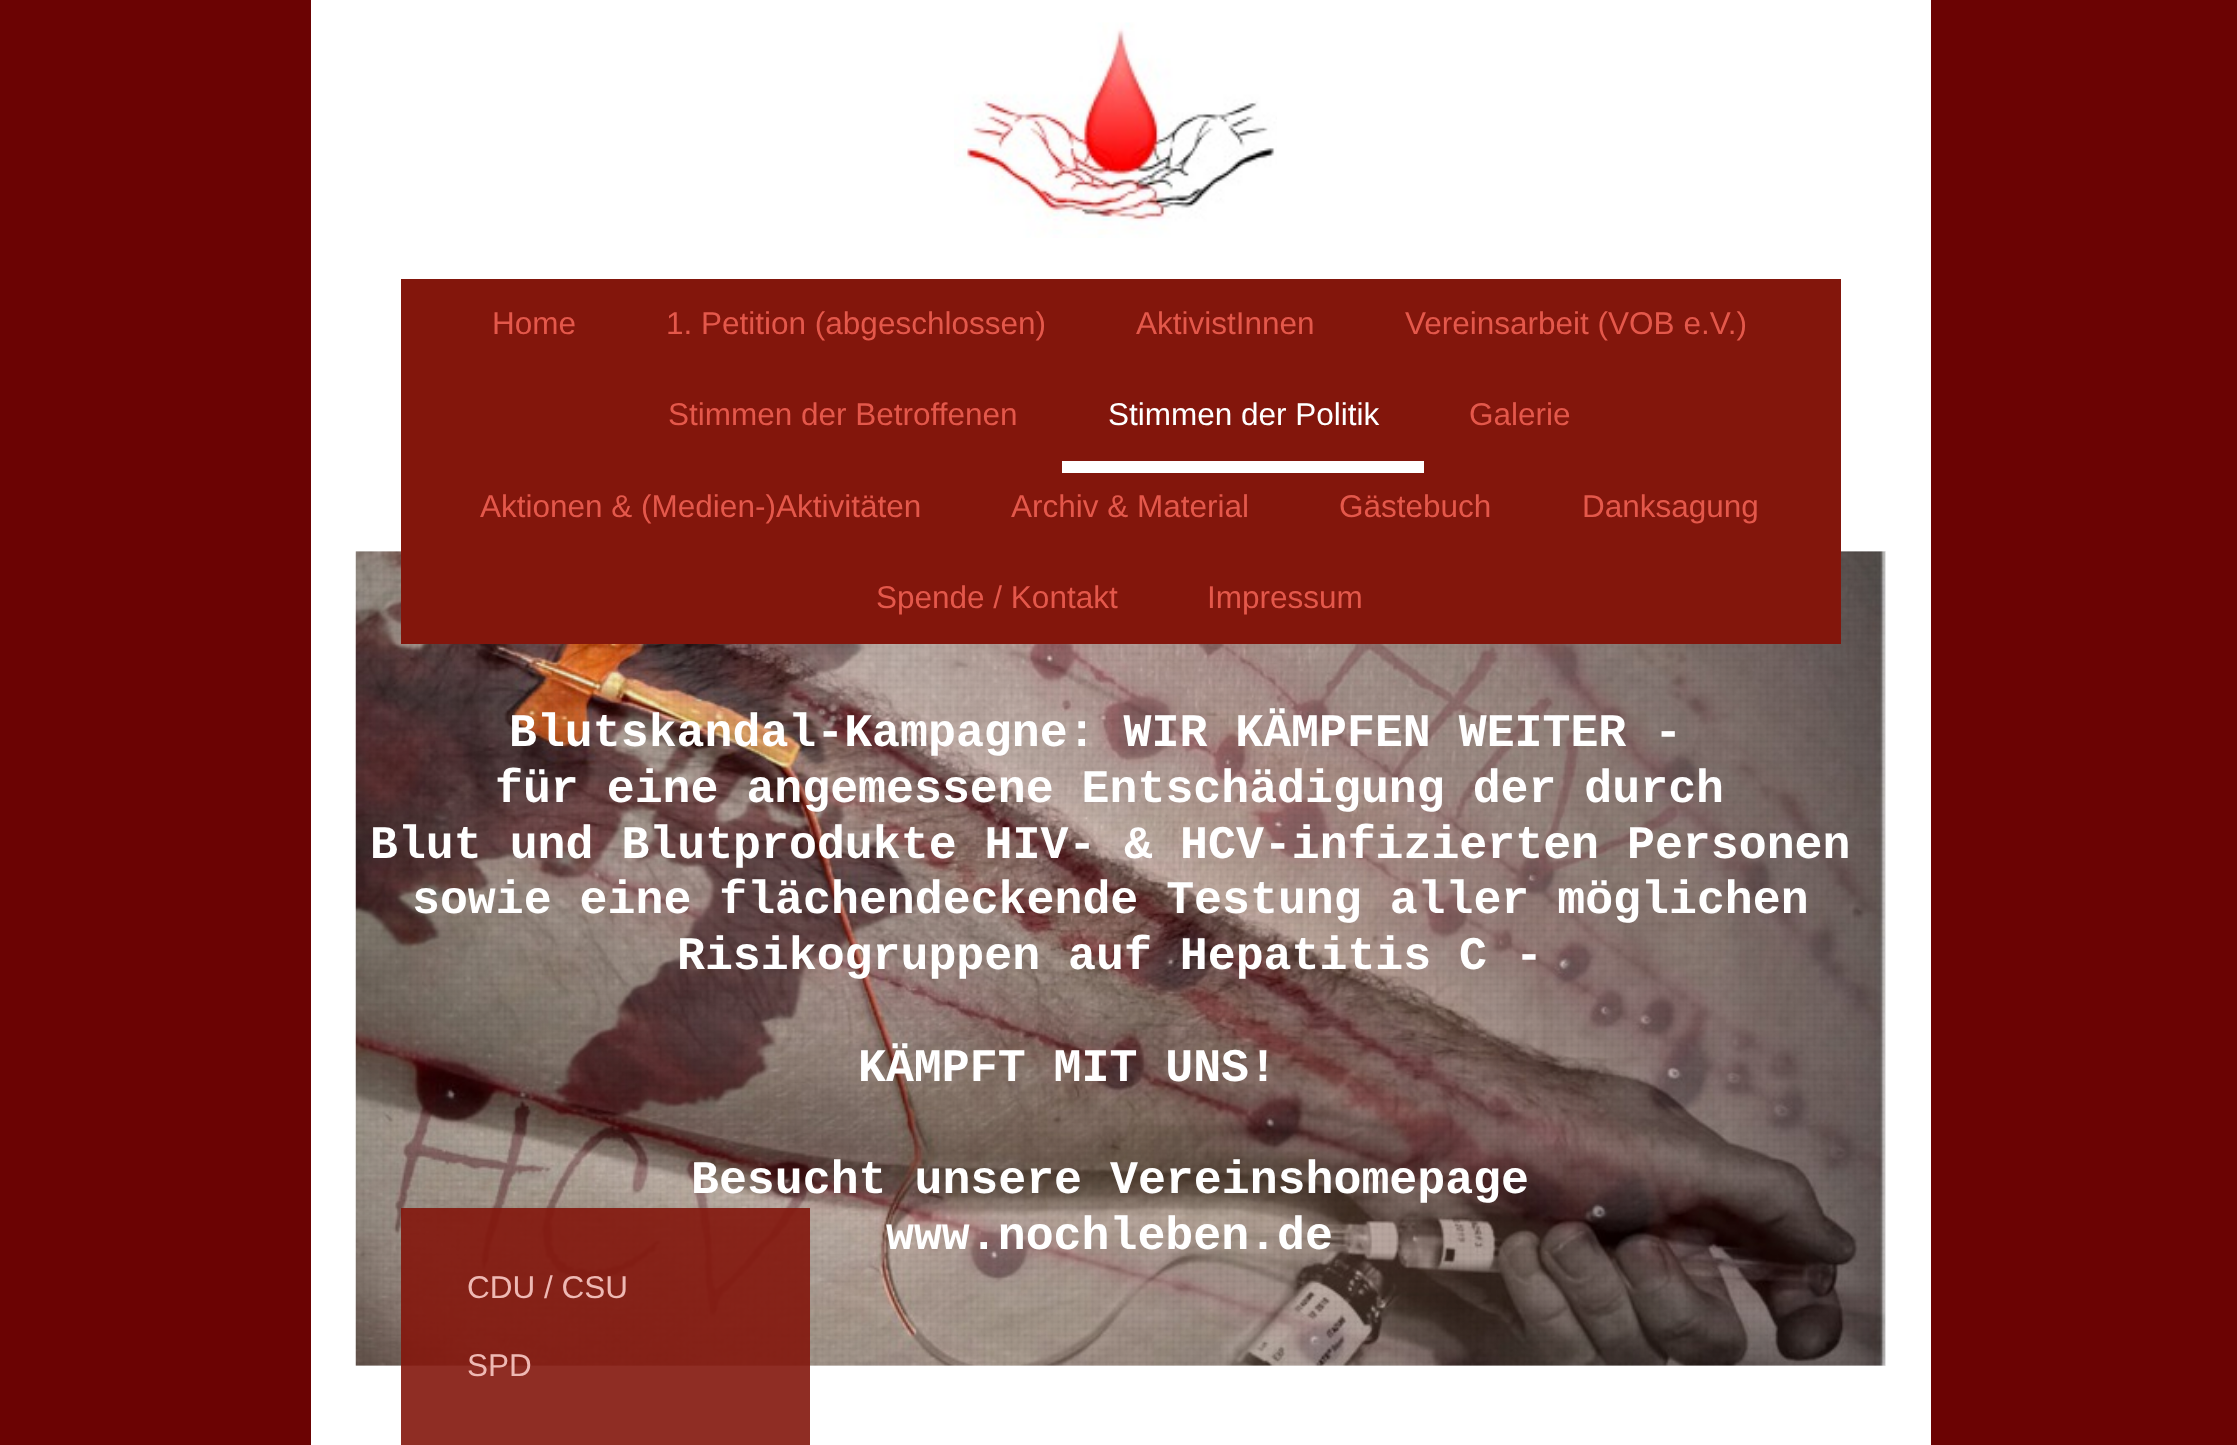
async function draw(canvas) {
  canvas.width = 2237;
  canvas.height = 1445;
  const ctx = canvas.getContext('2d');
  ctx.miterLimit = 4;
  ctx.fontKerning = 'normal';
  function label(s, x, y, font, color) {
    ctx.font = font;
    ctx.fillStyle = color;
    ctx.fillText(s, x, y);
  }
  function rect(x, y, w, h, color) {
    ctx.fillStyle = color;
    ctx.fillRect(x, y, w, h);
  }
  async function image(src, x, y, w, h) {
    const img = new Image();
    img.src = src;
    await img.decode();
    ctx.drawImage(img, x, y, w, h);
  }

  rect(0, 0, 2237, 1445, '#6b0303');
  rect(311, 0, 1620, 1445, '#fff');
  await image('assets/img1.png', 954, 22, 323, 216);
  rect(356, 551, 1530, 815, '#eee');
  await image('assets/img2.png', 355, 551, 1531, 815);
  await image('assets/img3.png', 356, 551, 1529, 815);
  rect(401, 279, 1440, 365, '#83160c');
  label('Home', 492, 334, '31.5px Liberation Sans', '#e4584b');
  label('1. Petition (abgeschlossen)', 666, 334, '31.5px Liberation Sans', '#e4584b');
  label('AktivistInnen', 1136, 334, '31.5px Liberation Sans', '#e4584b');
  label('Vereinsarbeit (VOB e.V.)', 1405, 334, '31.5px Liberation Sans', '#e4584b');
  label('Stimmen der Betroffenen', 668, 425, '31.5px Liberation Sans', '#e4584b');
  rect(1062, 461, 362, 12, '#fff');
  label('Stimmen der Politik', 1108, 425, '31.5px Liberation Sans', '#fff');
  label('Galerie', 1469, 425, '31.5px Liberation Sans', '#e4584b');
  label('Aktionen & (Medien-)Aktivitäten', 480, 517, '31.5px Liberation Sans', '#e4584b');
  label('Archiv & Material', 1011, 517, '31.5px Liberation Sans', '#e4584b');
  label('Gästebuch', 1339, 517, '31.5px Liberation Sans', '#e4584b');
  label('Danksagung', 1582, 517, '31.5px Liberation Sans', '#e4584b');
  label('Spende / Kontakt', 876, 608, '31.5px Liberation Sans', '#e4584b');
  label('Impressum', 1207, 608, '31.5px Liberation Sans', '#e4584b');
  label('Blutskandal-Kampagne: WIR KÄMPFEN WEITER -', 509, 746, 'bold 46.55px Liberation Mono', '#fff');
  label('für eine angemessene Entschädigung der durch', 495, 802, 'bold 46.55px Liberation Mono', '#fff');
  label('Blut und Blutprodukte HIV- & HCV-infizierten Personen', 370, 858, 'bold 46.55px Liberation Mono', '#fff');
  label('sowie eine flächendeckende Testung aller möglichen', 412, 913, 'bold 46.55px Liberation Mono', '#fff');
  label('Risikogruppen auf Hepatitis C -', 677, 969, 'bold 46.55px Liberation Mono', '#fff');
  label('KÄMPFT MIT UNS!', 858, 1081, 'bold 46.55px Liberation Mono', '#fff');
  label('Besucht unsere Vereinshomepage', 691, 1193, 'bold 46.55px Liberation Mono', '#fff');
  label('www.nochleben.de', 886, 1249, 'bold 46.55px Liberation Mono', '#fff');
  rect(401, 1208, 409, 237, '#83160ce6');
  label('CDU / CSU', 467, 1298, '31.5px Liberation Sans', '#eeb9b4');
  label('SPD', 467, 1376, '31.5px Liberation Sans', '#eeb9b4');
}

draw(document.querySelector('canvas'));
